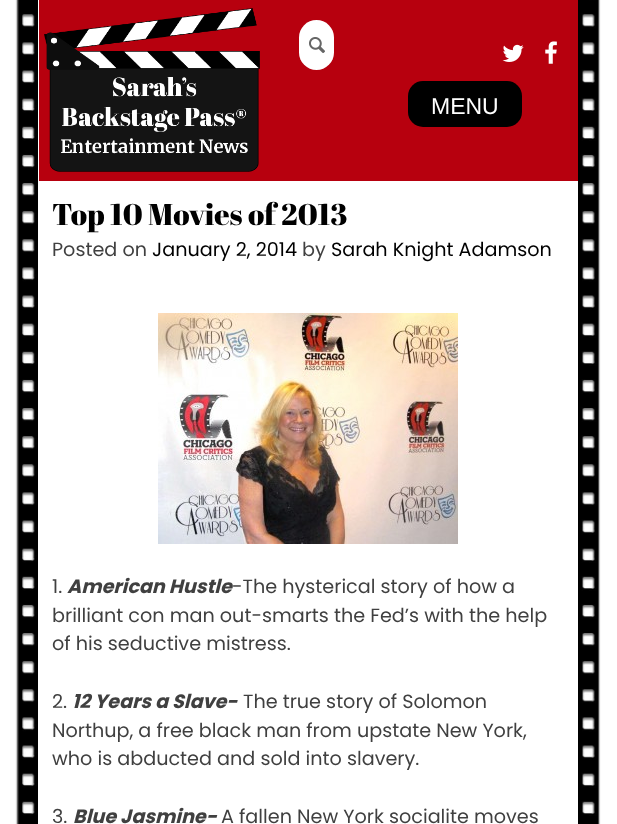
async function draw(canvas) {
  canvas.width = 617;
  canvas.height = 824;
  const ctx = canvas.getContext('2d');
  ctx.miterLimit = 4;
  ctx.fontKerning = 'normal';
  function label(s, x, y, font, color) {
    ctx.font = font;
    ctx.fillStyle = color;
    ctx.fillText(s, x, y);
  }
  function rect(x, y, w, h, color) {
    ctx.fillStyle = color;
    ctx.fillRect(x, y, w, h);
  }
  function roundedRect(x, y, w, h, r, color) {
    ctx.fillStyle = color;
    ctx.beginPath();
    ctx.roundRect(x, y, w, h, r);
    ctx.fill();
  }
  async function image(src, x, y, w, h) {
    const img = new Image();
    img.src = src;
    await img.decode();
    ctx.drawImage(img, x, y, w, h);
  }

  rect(0, 0, 617, 824, '#fff');
  await image('assets/img1.png', 15, 0, 586, 824);
  rect(39, 0, 539, 181, '#b7000e');
  await image('assets/img2.png', 44, 8, 216, 164);
  roundedRect(299, 20, 35, 50, 17.5, '#fff');
  await image('assets/img3.png', 309, 37, 16, 16);
  await image('assets/img4.png', 502, 44, 22, 18);
  await image('assets/img5.png', 545, 41, 12, 23);
  roundedRect(408, 81, 114, 46, 15, '#000');
  label('MENU', 431, 114, '23px Liberation Sans', '#fff');
  label('Top 10 Movies of 2013', 52, 225, '30px Abril Fatface', '#000');
  label('Posted on', 52, 256, '19.2px Poppins', '#404040');
  label('January 2, 2014', 152, 256, '19.2px Poppins', '#000');
  label('by', 302, 256, '19.2px Poppins', '#404040');
  label('Sarah Knight Adamson', 331, 256, '19.2px Poppins', '#000');
  await image('assets/img6.png', 158, 313, 300, 231);
  label('1.', 52, 593, '19.2px Poppins', '#404040');
  label('American Hustle', 67, 593, 'italic bold 19.2px Poppins', '#404040');
  label('-The hysterical story of how a', 232, 593, '19.2px Poppins', '#404040');
  label('brilliant con man out-smarts the Fed’s with the help', 52, 622, '19.2px Poppins', '#404040');
  label('of his seductive mistress.', 52, 650, '19.2px Poppins', '#404040');
  label('2.', 52, 708, '19.2px Poppins', '#404040');
  label('12 Years a Slave-', 72, 708, 'italic bold 19.2px Poppins', '#404040');
  label('The true story of Solomon', 243, 708, '19.2px Poppins', '#404040');
  label('Northup, a free black man from upstate New York,', 52, 737, '19.2px Poppins', '#404040');
  label('who is abducted and sold into slavery.', 52, 765, '19.2px Poppins', '#404040');
  label('3.', 52, 823, '19.2px Poppins', '#404040');
  label('Blue Jasmine-', 73, 823, 'italic bold 19.2px Poppins', '#404040');
  label('A fallen New York socialite moves', 221, 823, '19.2px Poppins', '#404040');
}

draw(document.querySelector('canvas'));
